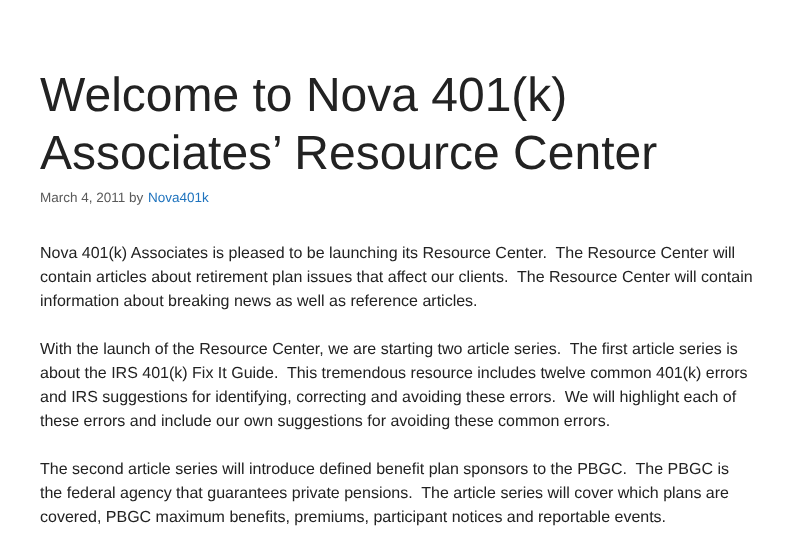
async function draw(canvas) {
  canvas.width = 793;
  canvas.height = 542;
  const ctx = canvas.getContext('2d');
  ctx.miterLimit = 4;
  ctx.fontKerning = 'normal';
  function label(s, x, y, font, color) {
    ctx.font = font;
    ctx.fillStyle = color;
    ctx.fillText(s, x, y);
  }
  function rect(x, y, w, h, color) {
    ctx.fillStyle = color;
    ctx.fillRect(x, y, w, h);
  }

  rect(0, 0, 793, 542, '#fff');
  label('Welcome to Nova 401(k)', 40, 111, '48px Liberation Sans', '#222');
  label('Associates’ Resource Center', 40, 169, '48px Liberation Sans', '#222');
  label('March 4, 2011 by', 40, 202, '13.5px Liberation Sans', '#595959');
  label('Nova401k', 148, 202, '13.5px Liberation Sans', '#1e73be');
  label('Nova 401(k) Associates is pleased to be launching its Resource Center.  The Resource Center will', 40, 258, '16px Liberation Sans', '#222');
  label('contain articles about retirement plan issues that affect our clients.  The Resource Center will contain', 40, 282, '16px Liberation Sans', '#222');
  label('information about breaking news as well as reference articles.', 40, 306, '16px Liberation Sans', '#222');
  label('With the launch of the Resource Center, we are starting two article series.  The first article series is', 40, 354, '16px Liberation Sans', '#222');
  label('about the IRS 401(k) Fix It Guide.  This tremendous resource includes twelve common 401(k) errors', 40, 378, '16px Liberation Sans', '#222');
  label('and IRS suggestions for identifying, correcting and avoiding these errors.  We will highlight each of', 40, 402, '16px Liberation Sans', '#222');
  label('these errors and include our own suggestions for avoiding these common errors.', 40, 426, '16px Liberation Sans', '#222');
  label('The second article series will introduce defined benefit plan sponsors to the PBGC.  The PBGC is', 40, 474, '16px Liberation Sans', '#222');
  label('the federal agency that guarantees private pensions.  The article series will cover which plans are', 40, 498, '16px Liberation Sans', '#222');
  label('covered, PBGC maximum benefits, premiums, participant notices and reportable events.', 40, 522, '16px Liberation Sans', '#222');
}

draw(document.querySelector('canvas'));
